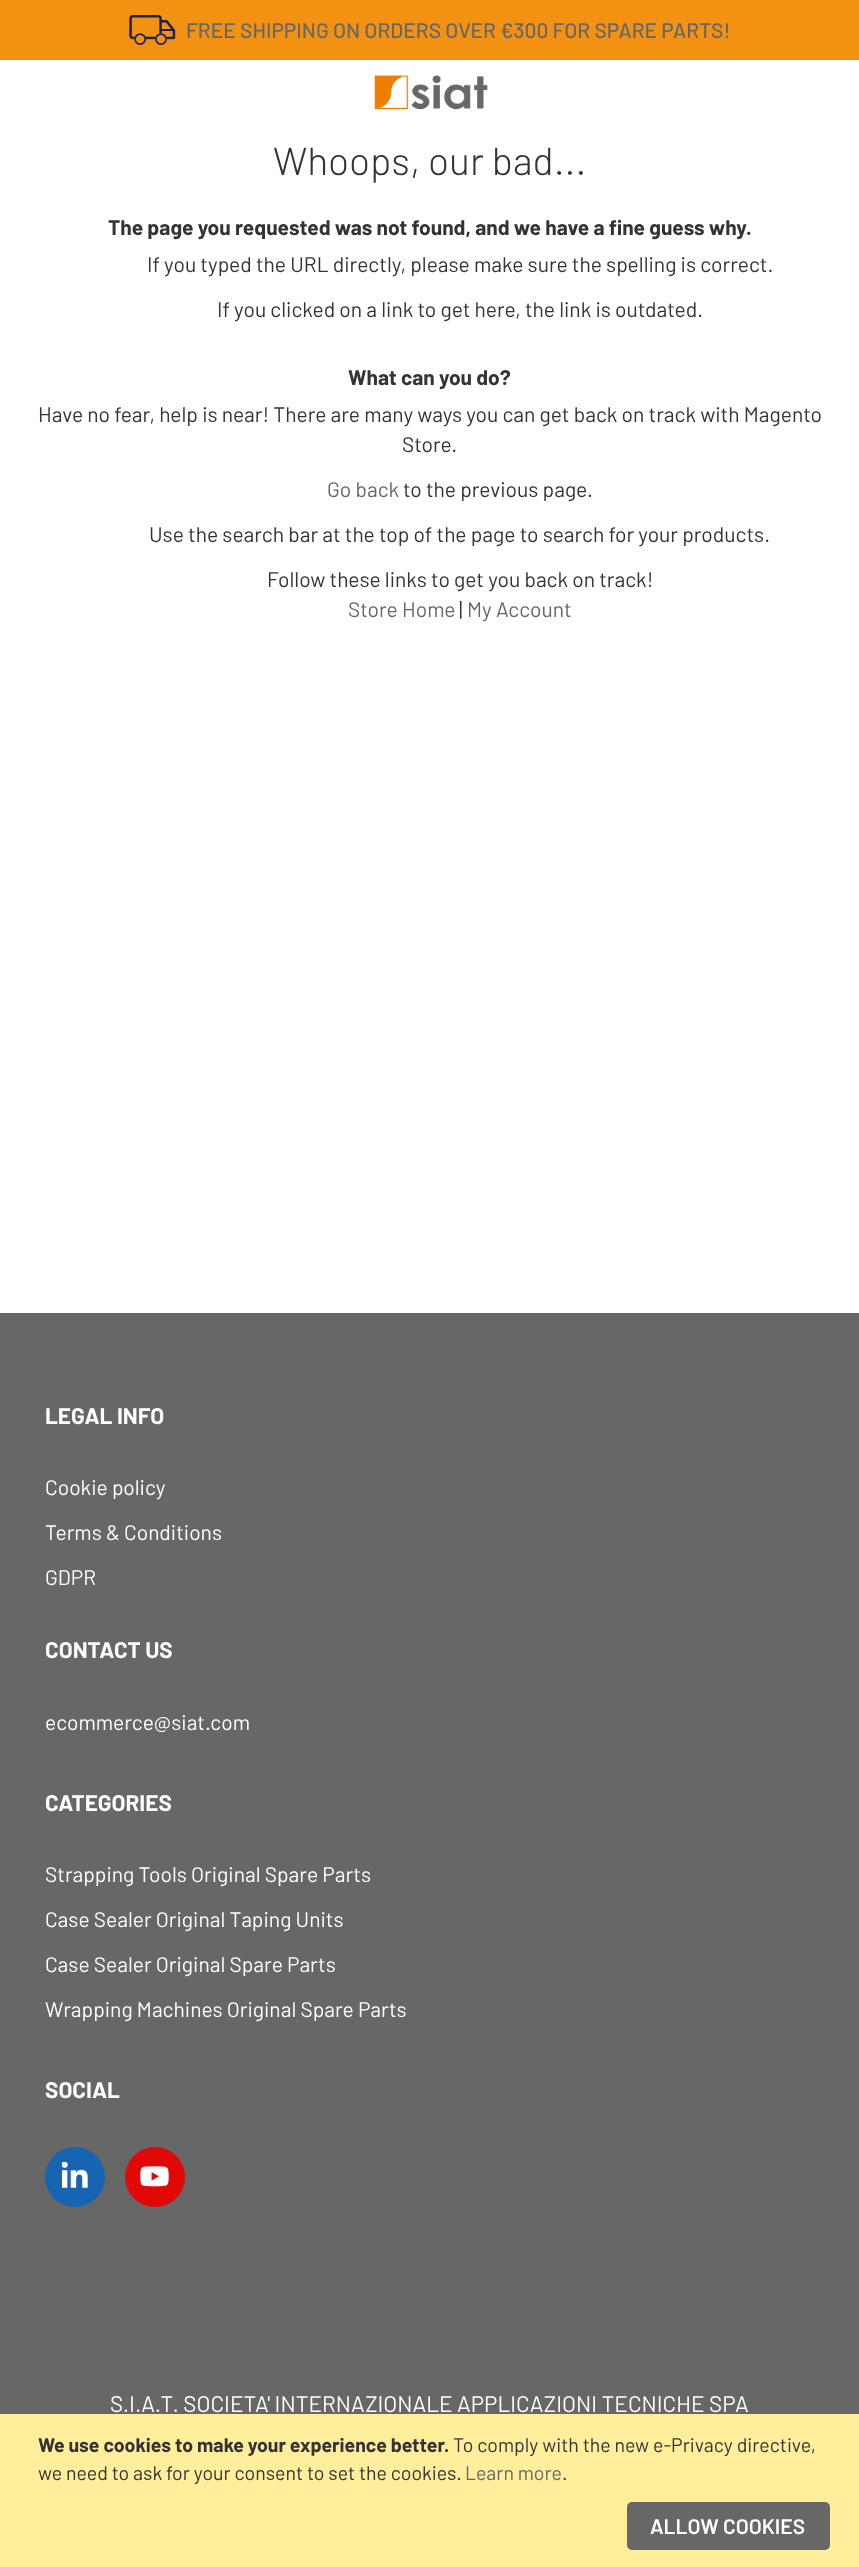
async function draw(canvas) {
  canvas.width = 859;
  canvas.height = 2567;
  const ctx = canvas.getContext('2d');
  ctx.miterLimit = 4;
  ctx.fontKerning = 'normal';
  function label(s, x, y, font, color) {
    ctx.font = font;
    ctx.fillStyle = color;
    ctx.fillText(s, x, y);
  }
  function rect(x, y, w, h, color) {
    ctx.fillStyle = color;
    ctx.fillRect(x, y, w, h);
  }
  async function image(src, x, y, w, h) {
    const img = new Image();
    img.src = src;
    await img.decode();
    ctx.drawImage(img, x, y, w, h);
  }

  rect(0, 0, 859, 2567, '#fff');
  rect(0, 0, 859, 60, '#f39212');
  await image('assets/img1.png', 129, 15, 47, 30);
  label('FREE SHIPPING ON ORDERS OVER €300 FOR SPARE PARTS!', 186, 38, '500 21px Barlow', '#666766');
  await image('assets/img2.png', 374, 75, 114, 35);
  label('Whoops, our bad...', 273, 175, '300 39px Barlow', '#333');
  label('The page you requested was not found, and we have a fine guess why.', 108, 235, 'bold 21px Barlow', '#333');
  label('If you typed the URL directly, please make sure the spelling is correct.', 147, 272, '21px Barlow', '#333');
  label('If you clicked on a link to get here, the link is outdated.', 217, 317, '21px Barlow', '#333');
  label('What can you do?', 348, 385, 'bold 21px Barlow', '#333');
  label('Have no fear, help is near! There are many ways you can get back on track with Magento', 38, 422, '21px Barlow', '#333');
  label('Store.', 402, 452, '21px Barlow', '#333');
  label('Go back', 327, 497, '21px Barlow', '#666766');
  label('to the previous page.', 403, 497, '21px Barlow', '#333');
  label('Use the search bar at the top of the page to search for your products.', 149, 542, '21px Barlow', '#333');
  label('Follow these links to get you back on track!', 267, 587, '21px Barlow', '#333');
  label('Store Home', 348, 617, '21px Barlow', '#666766');
  label('|', 459, 617, '21px Barlow', '#333');
  label('My Account', 467, 617, '21px Barlow', '#666766');
  rect(0, 1313, 859, 1101, '#666766');
  label('LEGAL INFO', 45, 1424, 'bold 22.5px Barlow', '#fff');
  label('Cookie policy', 45, 1495, '21px Barlow', '#fff');
  label('Terms & Conditions', 45, 1540, '21px Barlow', '#fff');
  label('GDPR', 45, 1585, '21px Barlow', '#fff');
  label('CONTACT US', 45, 1658, 'bold 22.5px Barlow', '#fff');
  label('ecommerce@siat.com', 45, 1730, '21px Barlow', '#fff');
  label('CATEGORIES', 45, 1811, 'bold 22.5px Barlow', '#fff');
  label('Strapping Tools Original Spare Parts', 45, 1882, '21px Barlow', '#fff');
  label('Case Sealer Original Taping Units', 45, 1927, '21px Barlow', '#fff');
  label('Case Sealer Original Spare Parts', 45, 1972, '21px Barlow', '#fff');
  label('Wrapping Machines Original Spare Parts', 45, 2017, '21px Barlow', '#fff');
  label('SOCIAL', 45, 2098, 'bold 22.5px Barlow', '#fff');
  ctx.fillStyle = '#1664b2';
  ctx.beginPath();
  ctx.arc(75, 2177, 30, 0, 2 * Math.PI);
  ctx.fill();
  await image('assets/img3.png', 62, 2162, 26, 26);
  ctx.fillStyle = '#e10808';
  ctx.beginPath();
  ctx.arc(155, 2177, 30, 0, 2 * Math.PI);
  ctx.fill();
  await image('assets/img4.png', 140, 2166, 29, 21);
  label('S.I.A.T. SOCIETA\' INTERNAZIONALE APPLICAZIONI TECNICHE SPA', 110, 2412, '22.5px Barlow', '#fff');
  rect(0, 2414, 859, 153, '#ffee9c');
  label('We use cookies to make your experience better.', 38, 2452, 'bold 19.5px Barlow', '#333');
  label('To comply with the new e-Privacy directive,', 453, 2452, '19.5px Barlow', '#333');
  label('we need to ask for your consent to set the cookies.', 38, 2480, '19.5px Barlow', '#333');
  label('Learn more', 465, 2480, '19.5px Barlow', '#666766');
  label('.', 562, 2480, '19.5px Barlow', '#333');
  ctx.fillStyle = '#666766';
  ctx.beginPath();
  ctx.roundRect(628, 2503, 201, 46, 4);
  ctx.fill();
  ctx.strokeStyle = '#666766';
  ctx.lineWidth = 2;
  ctx.stroke();
  label('ALLOW COOKIES', 650, 2534, '600 21px Barlow', '#fff');
}

draw(document.querySelector('canvas'));
